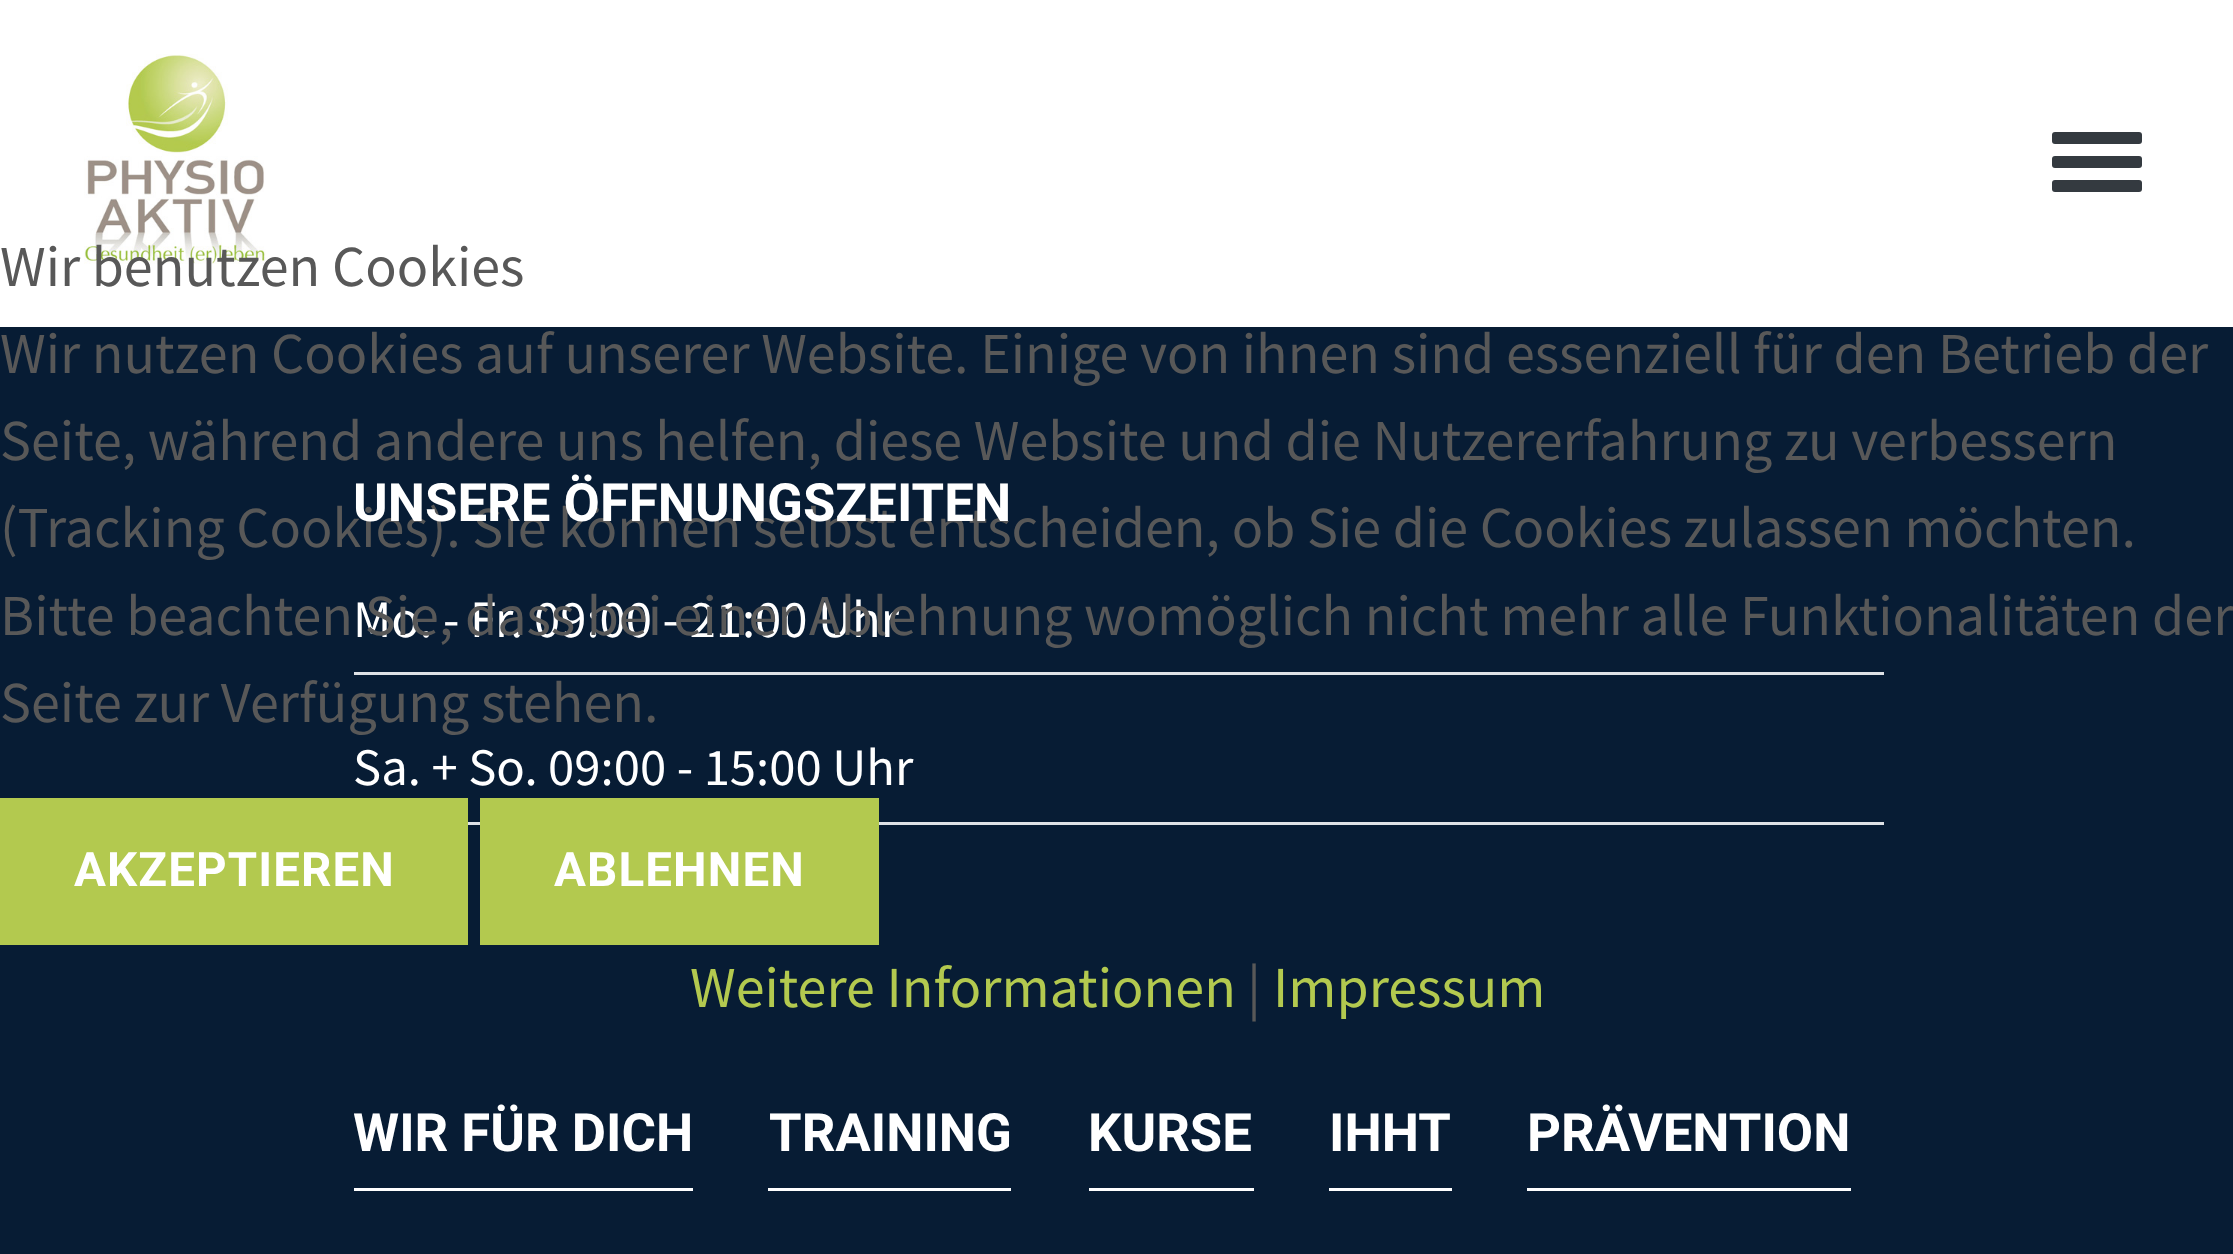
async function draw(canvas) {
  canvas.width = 2233;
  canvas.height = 1254;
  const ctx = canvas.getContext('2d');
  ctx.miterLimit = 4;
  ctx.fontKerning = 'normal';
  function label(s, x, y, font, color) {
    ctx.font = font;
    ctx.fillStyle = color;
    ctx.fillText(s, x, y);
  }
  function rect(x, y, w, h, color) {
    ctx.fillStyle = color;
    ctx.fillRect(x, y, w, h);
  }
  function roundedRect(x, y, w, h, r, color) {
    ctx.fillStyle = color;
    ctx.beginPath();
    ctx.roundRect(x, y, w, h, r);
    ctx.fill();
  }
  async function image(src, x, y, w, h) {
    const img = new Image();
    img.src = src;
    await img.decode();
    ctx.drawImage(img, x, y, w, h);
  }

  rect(0, 0, 2233, 1254, '#071c34');
  rect(0, 0, 2233, 327, '#fff');
  await image('assets/img1.png', 84, 54, 182, 210);
  roundedRect(2052, 132, 90, 12, 3, '#343a40');
  roundedRect(2052, 156, 90, 12, 3, '#343a40');
  roundedRect(2052, 180, 90, 12, 3, '#343a40');
  label('Wir benutzen Cookies', 0, 286, '58.1px Source Sans Pro', '#585858');
  label('Wir nutzen Cookies auf unserer Website. Einige von ihnen sind essenziell für den Betrieb der', 0, 373, '58.1px Source Sans Pro', '#585858');
  label('Seite, während andere uns helfen, diese Website und die Nutzererfahrung zu verbessern', 0, 460, '58.1px Source Sans Pro', '#585858');
  label('(Tracking Cookies). Sie können selbst entscheiden, ob Sie die Cookies zulassen möchten.', 0, 547, '58.1px Source Sans Pro', '#585858');
  label('Mo. - Fr. 09:00 - 21:00 Uhr', 353, 637, '52.75px Source Sans Pro', '#fff');
  label('Bitte beachten Sie, dass bei einer Ablehnung womöglich nicht mehr alle Funktionalitäten der', 0, 635, '58.1px Source Sans Pro', '#585858');
  label('Seite zur Verfügung stehen.', 0, 722, '58.1px Source Sans Pro', '#585858');
  rect(0, 798, 468, 147, '#b3c94f');
  ctx.letterSpacing = '1.1px';
  label('AKZEPTIEREN', 74, 886, 'bold 47.5px Roboto', '#fff');
  rect(468, 822, 1416, 3, '#dee2e6');
  rect(480, 798, 399, 147, '#b3c94f');
  label('ABLEHNEN', 554, 886, 'bold 47.5px Roboto', '#fff');
  ctx.letterSpacing = '0px';
  label('Weitere Informationen', 690, 1007, '58.1px Source Sans Pro', '#b3c94f');
  label('|', 1247, 1007, '58.1px Source Sans Pro', '#585858');
  label('Impressum', 1273, 1007, '58.1px Source Sans Pro', '#b3c94f');
  label('UNSERE ÖFFNUNGSZEITEN', 353, 521, 'bold 52.75px Roboto', '#fff');
  rect(354, 672, 1530, 3, '#dee2e6');
  label('Sa. + So. 09:00 - 15:00 Uhr', 353, 785, '52.75px Source Sans Pro', '#fff');
  rect(354, 1188, 339, 3, '#fff');
  label('WIR FÜR DICH', 353, 1151, 'bold 52.75px Roboto', '#fff');
  rect(768, 1188, 243, 3, '#fff');
  label('TRAINING', 769, 1151, 'bold 52.75px Roboto', '#fff');
  rect(1089, 1188, 165, 3, '#fff');
  label('KURSE', 1088, 1151, 'bold 52.75px Roboto', '#fff');
  rect(1329, 1188, 123, 3, '#fff');
  label('IHHT', 1329, 1151, 'bold 52.75px Roboto', '#fff');
  rect(1527, 1188, 324, 3, '#fff');
  label('PRÄVENTION', 1527, 1151, 'bold 52.75px Roboto', '#fff');
}

draw(document.querySelector('canvas'));
